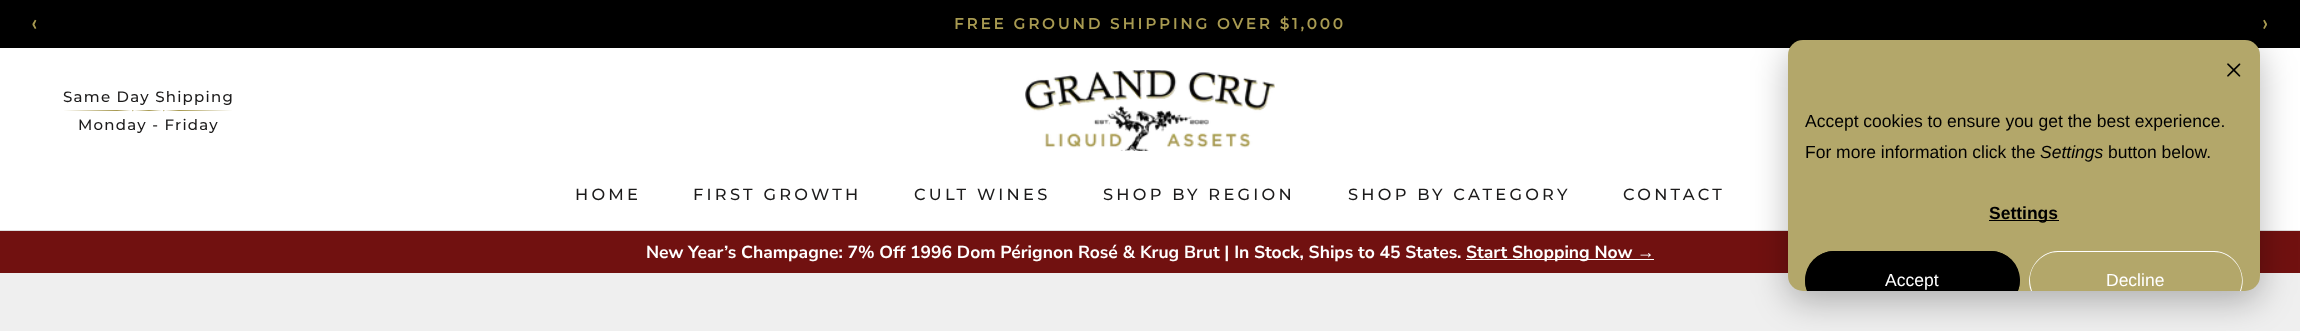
async function draw(canvas) {
  canvas.width = 2300;
  canvas.height = 331;
  const ctx = canvas.getContext('2d');
  ctx.miterLimit = 4;
  ctx.fontKerning = 'normal';
  function label(s, x, y, font, color) {
    ctx.font = font;
    ctx.fillStyle = color;
    ctx.fillText(s, x, y);
  }
  function rect(x, y, w, h, color) {
    ctx.fillStyle = color;
    ctx.fillRect(x, y, w, h);
  }
  function roundedRect(x, y, w, h, r, color) {
    ctx.fillStyle = color;
    ctx.beginPath();
    ctx.roundRect(x, y, w, h, r);
    ctx.fill();
  }
  async function image(src, x, y, w, h) {
    const img = new Image();
    img.src = src;
    await img.decode();
    ctx.drawImage(img, x, y, w, h);
  }
  let path;

  rect(0, 0, 2300, 331, '#efefef');
  rect(0, 0, 2300, 48, '#000');
  label('‹', 31, 31, '25px Nunito Sans', '#a89a51');
  ctx.letterSpacing = '3px';
  label('FREE GROUND SHIPPING OVER $1,000', 954, 29, 'bold 15px Montserrat', '#a89a51');
  ctx.letterSpacing = '0px';
  label('›', 2262, 31, '25px Nunito Sans', '#a89a51');
  rect(0, 48, 2300, 182, '#fff');
  rect(0, 230, 2300, 1, '#ddd');
  await image('assets/img1.png', 1025, 70, 250, 81);
  ctx.letterSpacing = '1.25px';
  label('Same Day Shipping', 63, 102, '500 15px Montserrat', '#1c1b1b');
  ctx.fillStyle = '#a79950';
  path = new Path2D('M179 110L165 111H179H233Z');
  ctx.fill(path);
  ctx.save();
  ctx.beginPath();
  ctx.rect(63, 110, 171, 1);
  ctx.clip();
  path = new Path2D('M134 111L149 111.5L162 111L149 110Z');
  ctx.fill(path);
  ctx.restore();
  path = new Path2D('M63 111H117H131L117 110Z');
  ctx.fill(path);
  path = new Path2D('M133.5 110.5C133.5 111.5 132 111.5 132 110.5C132 110 133.5 110 133.5 110.5M164.5 110.5C164.5 111.5 163 111.5 163 110.5C163 110 164.5 110 164.5 110.5');
  ctx.fill(path);
  label('Monday - Friday', 78, 130, '500 15px Montserrat', '#1c1b1b');
  ctx.letterSpacing = '3.25px';
  label('HOME', 575, 200, '500 16.25px Montserrat', '#1c1b1b');
  label('FIRST GROWTH', 693, 200, '500 16.25px Montserrat', '#1c1b1b');
  label('CULT WINES', 914, 200, '500 16.25px Montserrat', '#1c1b1b');
  label('SHOP BY REGION', 1103, 200, '500 16.25px Montserrat', '#1c1b1b');
  label('SHOP BY CATEGORY', 1348, 200, '500 16.25px Montserrat', '#1c1b1b');
  label('CONTACT', 1623, 200, '500 16.25px Montserrat', '#1c1b1b');
  rect(0, 231, 2300, 42, '#711110');
  ctx.letterSpacing = '0px';
  label('New Year’s Champagne: 7% Off 1996 Dom Pérignon Rosé & Krug Brut | In Stock, Ships to 45 States.', 646, 258, 'bold 17.5px Nunito Sans', '#fff');
  rect(1466, 259, 188, 1, '#fff');
  label('Start Shopping Now', 1466, 258, 'bold 17.5px Nunito Sans', '#fff');
  label('→', 1637, 258, 'bold 17.5px Liberation Sans', '#fff');
  ctx.fillStyle = '#00000047';
  ctx.filter = 'blur(17.5px)';
  ctx.beginPath();
  ctx.roundRect(1788, 50, 472, 251, 15);
  ctx.fill();
  ctx.filter = 'none';
  roundedRect(1788, 40, 472, 251, 15, '#b3a76a');
  await image('assets/img2.png', 2227, 63, 14, 14);
  label('Accept cookies to ensure you get the best experience.', 1805, 127, '17.5px Liberation Sans', '#000');
  label('For more information click the', 1805, 158, '17.5px Liberation Sans', '#000');
  label('Settings', 2040, 158, 'italic 17.5px Liberation Sans', '#000');
  label('button below.', 2108, 158, '17.5px Liberation Sans', '#000');
  rect(1989, 220, 70, 1, '#000');
  label('Settings', 1989, 219, 'bold 17.5px Liberation Sans', '#000');
  ctx.save();
  ctx.beginPath();
  ctx.roundRect(1788, 40, 472, 251, 15);
  ctx.clip();
  roundedRect(1805, 251, 215, 58, 29, '#000');
  ctx.restore();
  path = new Path2D('M1834 251C1814 251 1800 273 1807 291H1808C1807 288 1806 284 1806 280C1806 265 1819 252 1834 252H1991C2006 252 2019 265 2019 280C2019 284 2018 288 2017 291H2018C2025 273 2011 251 1991 251Z');
  ctx.fill(path);
  label('Accept', 1885, 286, '17.5px Liberation Sans', '#fff');
  path = new Path2D('M2058 251C2038 251 2024 273 2031 291H2032C2031 288 2030 284 2030 280C2030 265 2043 252 2058 252H2214C2229 252 2242 265 2242 280C2242 284 2241 288 2240 291H2241C2248 273 2234 251 2214 251Z');
  ctx.fill(path);
  label('Decline', 2106, 286, '17.5px Liberation Sans', '#fff');
}

draw(document.querySelector('canvas'));
